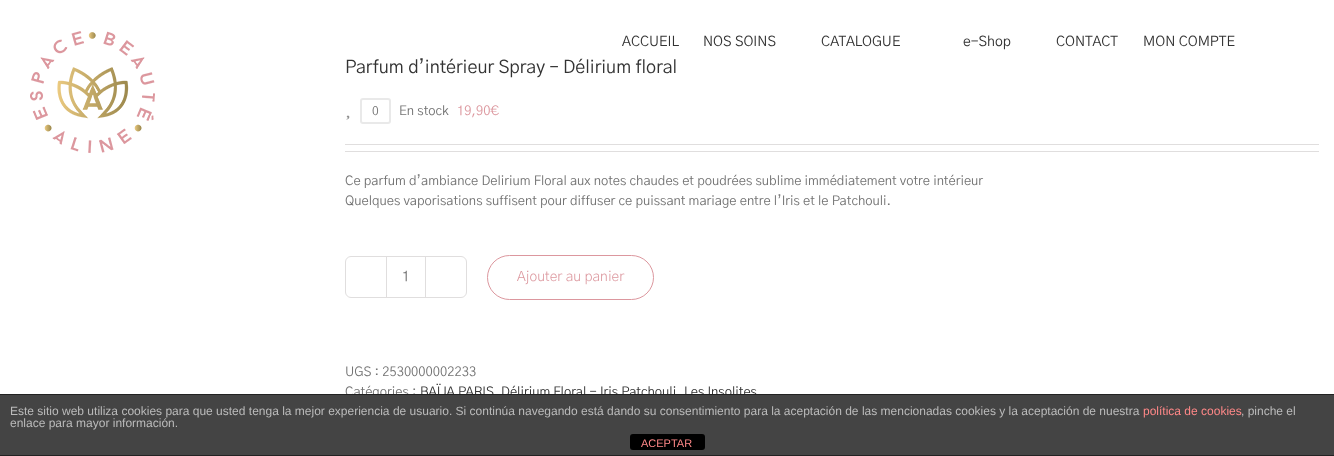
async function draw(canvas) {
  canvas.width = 1334;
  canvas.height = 456;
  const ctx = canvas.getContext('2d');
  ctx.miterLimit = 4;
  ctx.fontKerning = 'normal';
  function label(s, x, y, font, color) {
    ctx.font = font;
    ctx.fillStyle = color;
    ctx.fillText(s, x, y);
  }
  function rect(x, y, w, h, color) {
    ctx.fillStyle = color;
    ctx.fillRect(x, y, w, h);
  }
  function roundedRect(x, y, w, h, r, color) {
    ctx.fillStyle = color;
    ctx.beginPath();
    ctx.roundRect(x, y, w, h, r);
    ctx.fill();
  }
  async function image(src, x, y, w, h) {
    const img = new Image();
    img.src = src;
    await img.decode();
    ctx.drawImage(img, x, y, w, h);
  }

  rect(0, 0, 1334, 456, '#fff');
  await image('assets/img1.png', 30, 31, 125, 122);
  label('ACCUEIL', 622, 46, '14px "Gothic A1"', '#333');
  label('NOS SOINS', 703, 46, '14px "Gothic A1"', '#333');
  label('CATALOGUE', 821, 46, '14px "Gothic A1"', '#333');
  label('e-Shop', 963, 46, '14px "Gothic A1"', '#333');
  label('CONTACT', 1056, 46, '14px "Gothic A1"', '#333');
  label('MON COMPTE', 1143, 46, '14px "Gothic A1"', '#333');
  label('Parfum d’intérieur Spray – Délirium floral', 345, 73, '18px "Gothic A1"', '#333');
  ctx.beginPath();
  ctx.roundRect(361, 99, 29, 24, 2);
  ctx.strokeStyle = '#e9e9e9';
  ctx.lineWidth = 2;
  ctx.stroke();
  label('0', 372, 115, '12px "Gothic A1"', '#747474');
  await image('assets/img2.png', 346, 115, 4, 5);
  label('En stock', 399, 115, '13px "Gothic A1"', '#747474');
  label('19,90€', 457, 115, '13px "Gothic A1"', '#dc979e');
  rect(345, 144, 974, 1, '#e0dede');
  rect(345, 151, 974, 1, '#e0dede');
  label('Ce parfum d’ambiance Delirium Floral aux notes chaudes et poudrées sublime immédiatement votre intérieur', 345, 185, '13px "Gothic A1"', '#747474');
  label('Quelques vaporisations suffisent pour diffuser ce puissant mariage entre l’Iris et le Patchouli.', 345, 205, '13px "Gothic A1"', '#747474');
  ctx.beginPath();
  ctx.roundRect(345.5, 256.5, 121, 41, 5.5);
  ctx.strokeStyle = '#e0dede';
  ctx.lineWidth = 1;
  ctx.stroke();
  rect(425, 257, 1, 40, '#e0dede');
  rect(386, 257, 1, 40, '#e0dede');
  label('1', 402, 281, '14px "Gothic A1"', '#747474');
  ctx.beginPath();
  ctx.roundRect(487.5, 255.5, 166, 44, 22);
  ctx.strokeStyle = '#dc979e';
  ctx.stroke();
  label('Ajouter au panier', 517, 281, '300 14px "Gothic A1"', '#dc979e');
  label('UGS : 2530000002233', 345, 376, '13px "Gothic A1"', '#747474');
  label('Catégories :', 345, 396, '13px "Gothic A1"', '#747474');
  label('BAÏJA PARIS', 420, 396, '13px "Gothic A1"', '#333');
  label('Délirium Floral - Iris Patchouli', 501, 396, '13px "Gothic A1"', '#333');
  label('Les Insolites', 684, 396, '13px "Gothic A1"', '#333');
  rect(0, 395, 1334, 60, '#444');
  rect(0, 394, 1334, 1, '#222');
  rect(0, 455, 1334, 1, '#222');
  label('Este sitio web utiliza cookies para que usted tenga la mejor experiencia de usuario. Si continúa navegando está dando su consentimiento para la aceptación de las mencionadas cookies y la aceptación de nuestra', 10, 415, '12px Liberation Sans', '#bbb');
  label('política de cookies', 1143, 415, '12px Liberation Sans', '#f88');
  label(', pinche el', 1241, 415, '12px Liberation Sans', '#bbb');
  label('enlace para mayor información.', 10, 427, '12px Liberation Sans', '#bbb');
  roundedRect(630, 434, 75, 16, 3, '#000');
  label('ACEPTAR', 641, 447, '11px Liberation Sans', '#f88');
}

draw(document.querySelector('canvas'));
